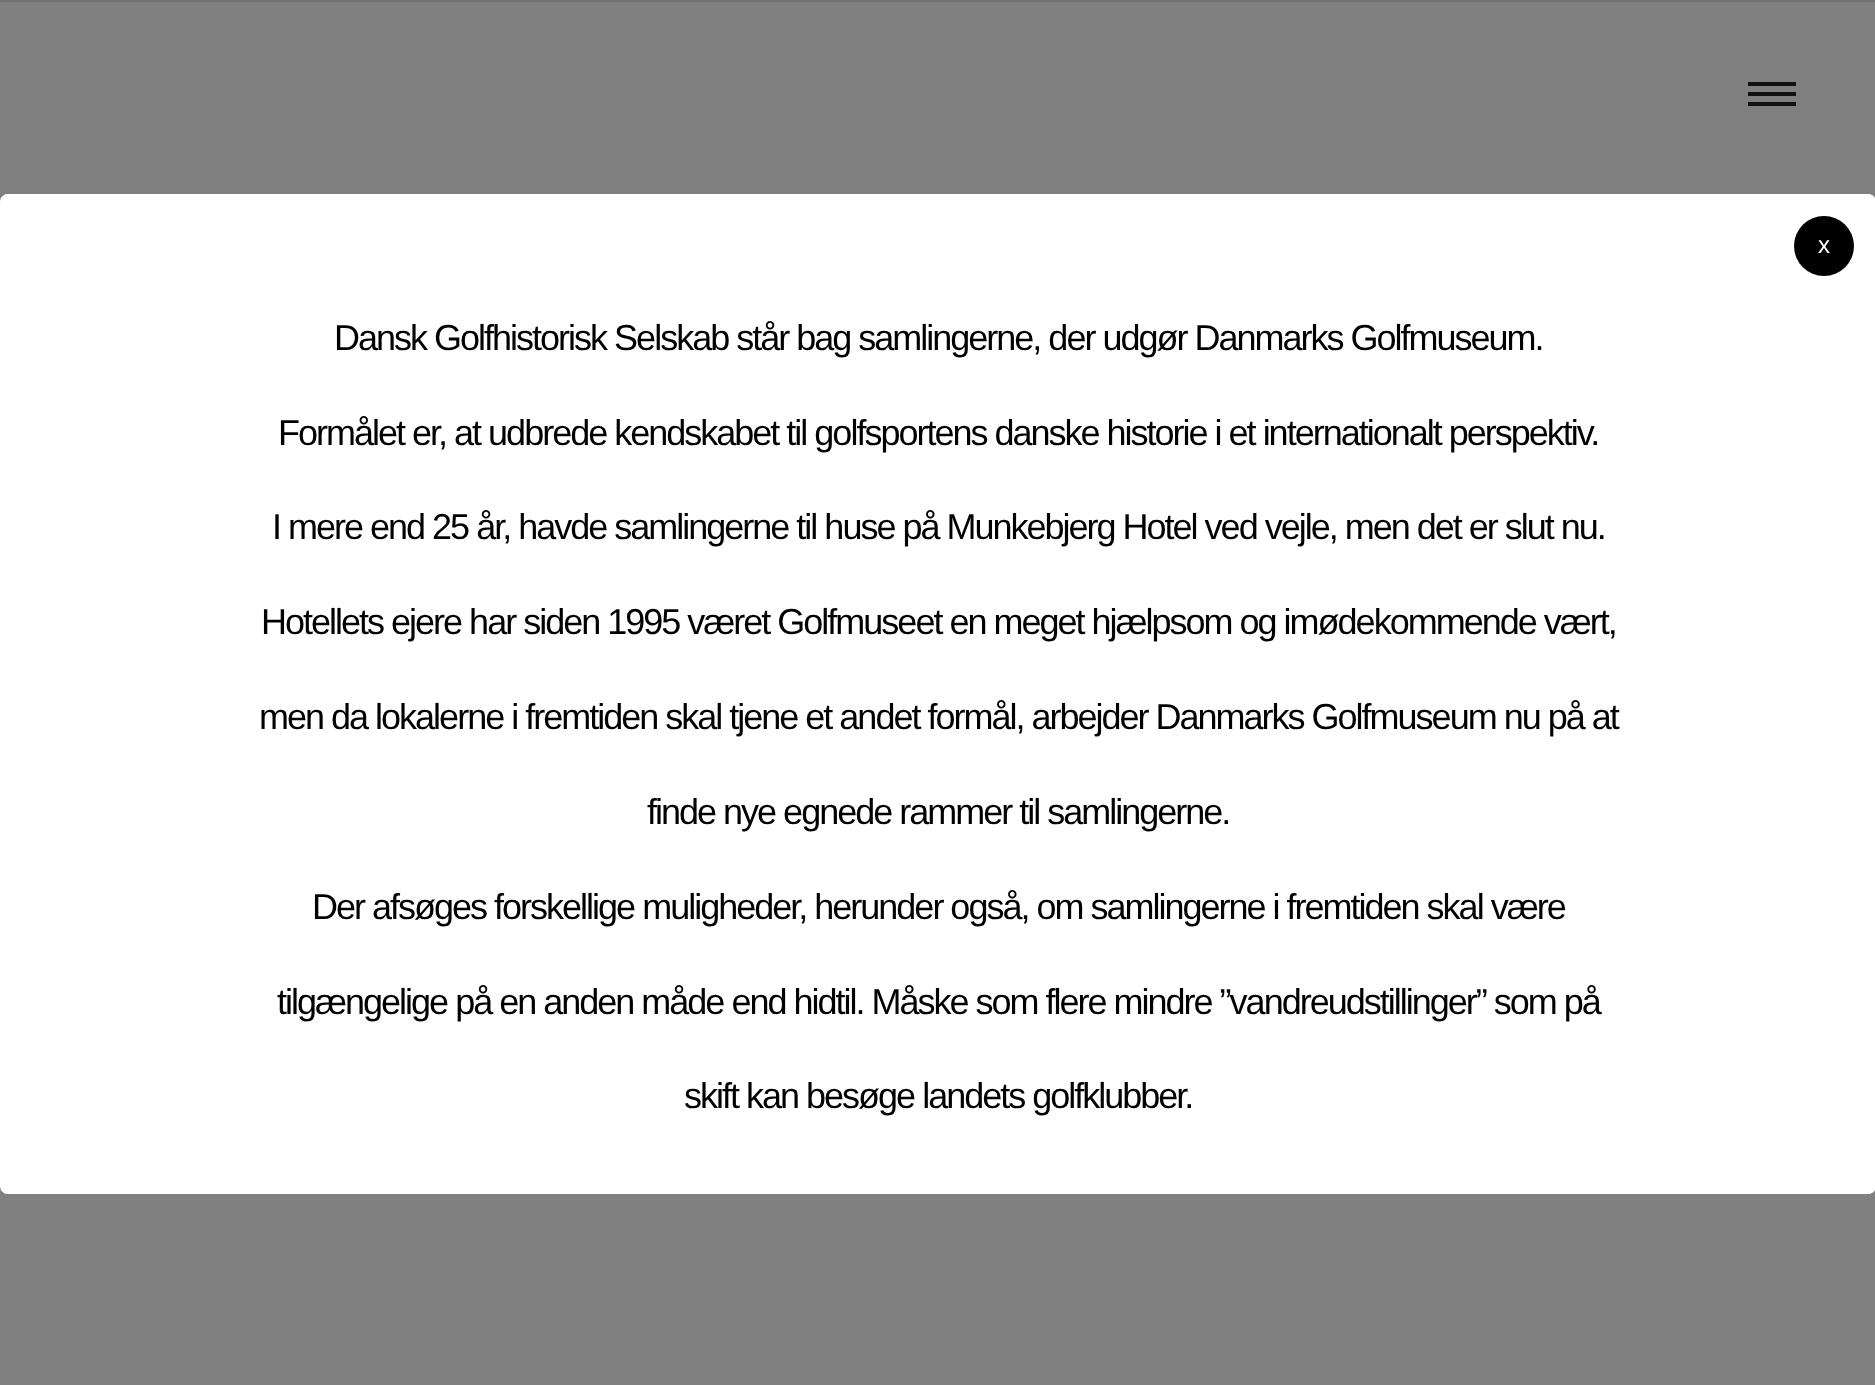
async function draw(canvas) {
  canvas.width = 1875;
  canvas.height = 1385;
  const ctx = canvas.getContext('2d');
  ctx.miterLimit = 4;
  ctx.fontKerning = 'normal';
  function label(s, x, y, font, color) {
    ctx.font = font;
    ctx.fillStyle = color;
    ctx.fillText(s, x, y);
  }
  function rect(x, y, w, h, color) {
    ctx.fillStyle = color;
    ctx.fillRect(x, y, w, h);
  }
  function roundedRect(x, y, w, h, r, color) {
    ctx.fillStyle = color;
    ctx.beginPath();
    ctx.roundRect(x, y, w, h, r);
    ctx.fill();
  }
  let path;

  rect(0, 0, 1875, 1385, '#808080');
  rect(0, 0, 1875, 2, '#727272');
  rect(1748, 82, 48, 4, '#121212');
  rect(1748, 92, 48, 4, '#121212');
  rect(1748, 102, 48, 4, '#121212');
  roundedRect(0, 194, 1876, 1000, 8, '#fff');
  path = new Path2D('M8 195H1868C1872 195 1875 198 1875 202V1186C1875 1190 1872 1193 1868 1193H8C4 1193 1 1190 1 1186V202C1 198 4 195 8 195Z');
  ctx.strokeStyle = '#fff';
  ctx.lineWidth = 2;
  ctx.setLineDash([2, 2]);
  ctx.stroke(path);
  ctx.fillStyle = '#000';
  ctx.beginPath();
  ctx.arc(1824, 246, 30, 0, 2 * Math.PI);
  ctx.fill();
  label('x', 1818, 253, '24px Liberation Sans', '#fff');
  ctx.letterSpacing = '-2px';
  label('Dansk Golfhistorisk Selskab står bag samlingerne, der udgør Danmarks Golfmuseum.', 334, 350, '36px Liberation Sans', '#000');
  label('Formålet er, at udbrede kendskabet til golfsportens danske historie i et internationalt perspektiv.', 278, 445, '36px Liberation Sans', '#000');
  label('I mere end 25 år, havde samlingerne til huse på Munkebjerg Hotel ved vejle, men det er slut nu.', 272, 539, '36px Liberation Sans', '#000');
  label('Hotellets ejere har siden 1995 været Golfmuseet en meget hjælpsom og imødekommende vært,', 261, 634, '36px Liberation Sans', '#000');
  label('men da lokalerne i fremtiden skal tjene et andet formål, arbejder Danmarks Golfmuseum nu på at', 259, 729, '36px Liberation Sans', '#000');
  label('finde nye egnede rammer til samlingerne.', 647, 824, '36px Liberation Sans', '#000');
  label('Der afsøges forskellige muligheder, herunder også, om samlingerne i fremtiden skal være', 312, 919, '36px Liberation Sans', '#000');
  label('tilgængelige på en anden måde end hidtil. Måske som flere mindre ”vandreudstillinger” som på', 277, 1014, '36px Liberation Sans', '#000');
  label('skift kan besøge landets golfklubber.', 684, 1108, '36px Liberation Sans', '#000');
}

draw(document.querySelector('canvas'));
